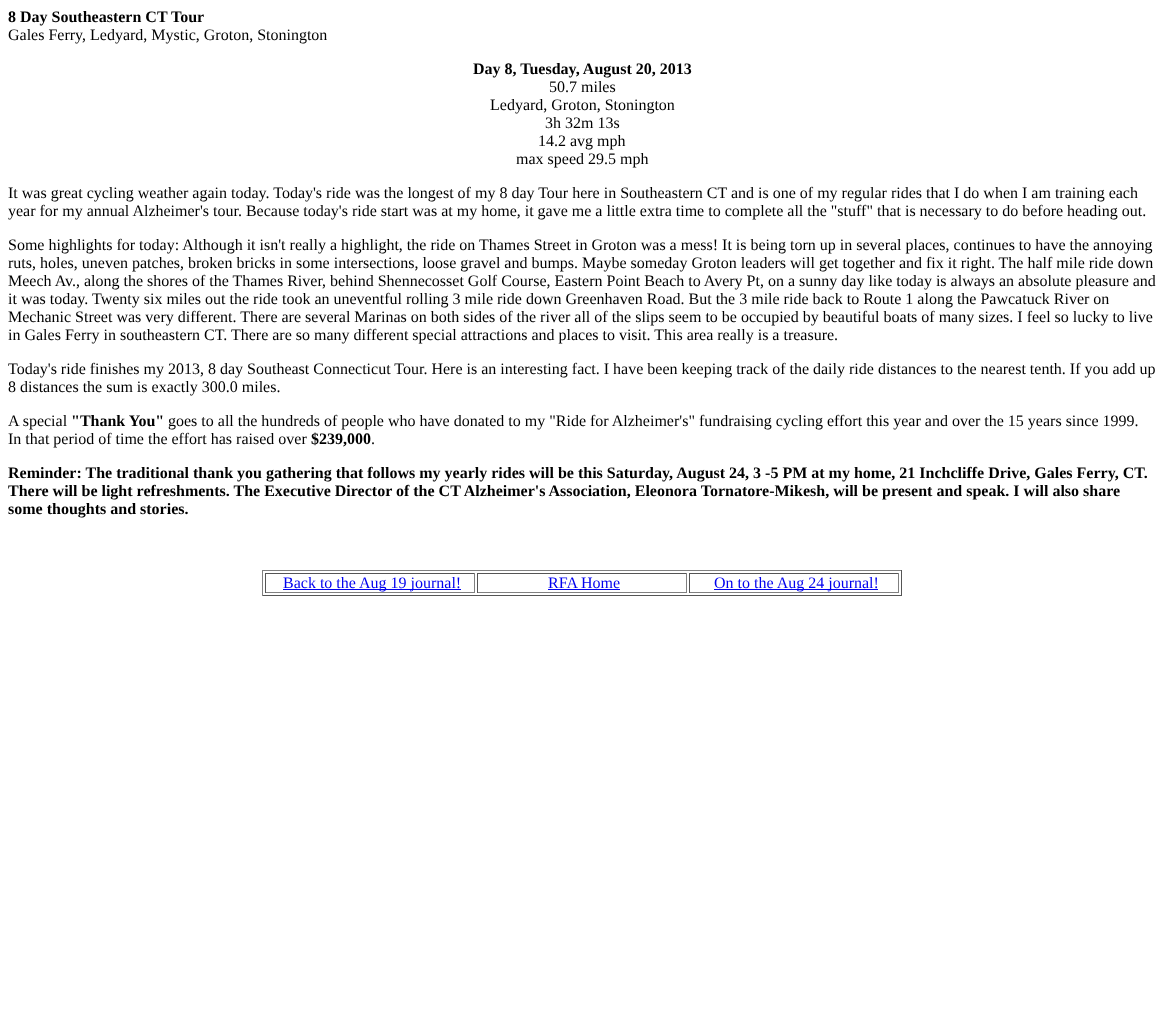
async function draw(canvas) {
  canvas.width = 1164;
  canvas.height = 1021;
  const ctx = canvas.getContext('2d');
  ctx.miterLimit = 4;
  ctx.fontKerning = 'normal';
  function label(s, x, y, font, color) {
    ctx.font = font;
    ctx.fillStyle = color;
    ctx.fillText(s, x, y);
  }
  function rect(x, y, w, h, color) {
    ctx.fillStyle = color;
    ctx.fillRect(x, y, w, h);
  }

  rect(0, 0, 1164, 1021, '#fff');
  label('8 Day Southeastern CT Tour', 8, 22, 'bold 16px Liberation Serif', '#000');
  label('Gales Ferry, Ledyard, Mystic, Groton, Stonington', 8, 40, '16px Liberation Serif', '#000');
  label('Day 8, Tuesday, August 20, 2013', 473, 74, 'bold 16px Liberation Serif', '#000');
  label('50.7 miles', 549, 92, '16px Liberation Serif', '#000');
  label('Ledyard, Groton, Stonington', 490, 110, '16px Liberation Serif', '#000');
  label('3h 32m 13s', 545, 128, '16px Liberation Serif', '#000');
  label('14.2 avg mph', 538, 146, '16px Liberation Serif', '#000');
  label('max speed 29.5 mph', 516, 164, '16px Liberation Serif', '#000');
  label('It was great cycling weather again today. Today\'s ride was the longest of my 8 day Tour here in Southeastern CT and is one of my regular rides that I do when I am training each', 8, 198, '16px Liberation Serif', '#000');
  label('year for my annual Alzheimer\'s tour. Because today\'s ride start was at my home, it gave me a little extra time to complete all the "stuff" that is necessary to do before heading out.', 8, 216, '16px Liberation Serif', '#000');
  label('Some highlights for today: Although it isn\'t really a highlight, the ride on Thames Street in Groton was a mess! It is being torn up in several places, continues to have the annoying', 8, 250, '16px Liberation Serif', '#000');
  label('ruts, holes, uneven patches, broken bricks in some intersections, loose gravel and bumps. Maybe someday Groton leaders will get together and fix it right. The half mile ride down', 8, 268, '16px Liberation Serif', '#000');
  label('Meech Av., along the shores of the Thames River, behind Shennecosset Golf Course, Eastern Point Beach to Avery Pt, on a sunny day like today is always an absolute pleasure and', 8, 286, '16px Liberation Serif', '#000');
  label('it was today. Twenty six miles out the ride took an uneventful rolling 3 mile ride down Greenhaven Road. But the 3 mile ride back to Route 1 along the Pawcatuck River on', 8, 304, '16px Liberation Serif', '#000');
  label('Mechanic Street was very different. There are several Marinas on both sides of the river all of the slips seem to be occupied by beautiful boats of many sizes. I feel so lucky to live', 8, 322, '16px Liberation Serif', '#000');
  label('in Gales Ferry in southeastern CT. There are so many different special attractions and places to visit. This area really is a treasure.', 8, 340, '16px Liberation Serif', '#000');
  label('Today\'s ride finishes my 2013, 8 day Southeast Connecticut Tour. Here is an interesting fact. I have been keeping track of the daily ride distances to the nearest tenth. If you add up', 8, 374, '16px Liberation Serif', '#000');
  label('8 distances the sum is exactly 300.0 miles.', 8, 392, '16px Liberation Serif', '#000');
  label('A special', 8, 426, '16px Liberation Serif', '#000');
  label('"Thank You"', 71, 426, 'bold 16px Liberation Serif', '#000');
  label('goes to all the hundreds of people who have donated to my "Ride for Alzheimer\'s" fundraising cycling effort this year and over the 15 years since 1999.', 168, 426, '16px Liberation Serif', '#000');
  label('In that period of time the effort has raised over', 8, 444, '16px Liberation Serif', '#000');
  label('$239,000', 311, 444, 'bold 16px Liberation Serif', '#000');
  label('.', 371, 444, '16px Liberation Serif', '#000');
  label('Reminder: The traditional thank you gathering that follows my yearly rides will be this Saturday, August 24, 3 -5 PM at my home, 21 Inchcliffe Drive, Gales Ferry, CT.', 8, 478, 'bold 16px Liberation Serif', '#000');
  label('There will be light refreshments. The Executive Director of the CT Alzheimer\'s Association, Eleonora Tornatore-Mikesh, will be present and speak. I will also share', 8, 496, 'bold 16px Liberation Serif', '#000');
  label('some thoughts and stories.', 8, 514, 'bold 16px Liberation Serif', '#000');
  rect(262, 570, 640, 1, '#808080');
  rect(901, 570, 1, 26, '#555');
  rect(262, 595, 640, 1, '#555');
  rect(262, 570, 1, 26, '#808080');
  rect(265, 573, 210, 1, '#555');
  rect(474, 573, 1, 20, '#808080');
  rect(265, 592, 210, 1, '#808080');
  rect(265, 573, 1, 20, '#555');
  rect(283, 589, 178, 1, '#00e');
  label('Back to the Aug 19 journal!', 283, 588, '16px Liberation Serif', '#00e');
  rect(477, 573, 210, 1, '#555');
  rect(686, 573, 1, 20, '#808080');
  rect(477, 592, 210, 1, '#808080');
  rect(477, 573, 1, 20, '#555');
  label('RFA Home', 548, 588, '16px Liberation Serif', '#00e');
  rect(548, 589, 72, 1, '#00e');
  rect(689, 573, 210, 1, '#555');
  rect(898, 573, 1, 20, '#808080');
  rect(689, 592, 210, 1, '#808080');
  rect(689, 573, 1, 20, '#555');
  rect(714, 589, 164, 1, '#00e');
  label('On to the Aug 24 journal!', 714, 588, '16px Liberation Serif', '#00e');
}

draw(document.querySelector('canvas'));
